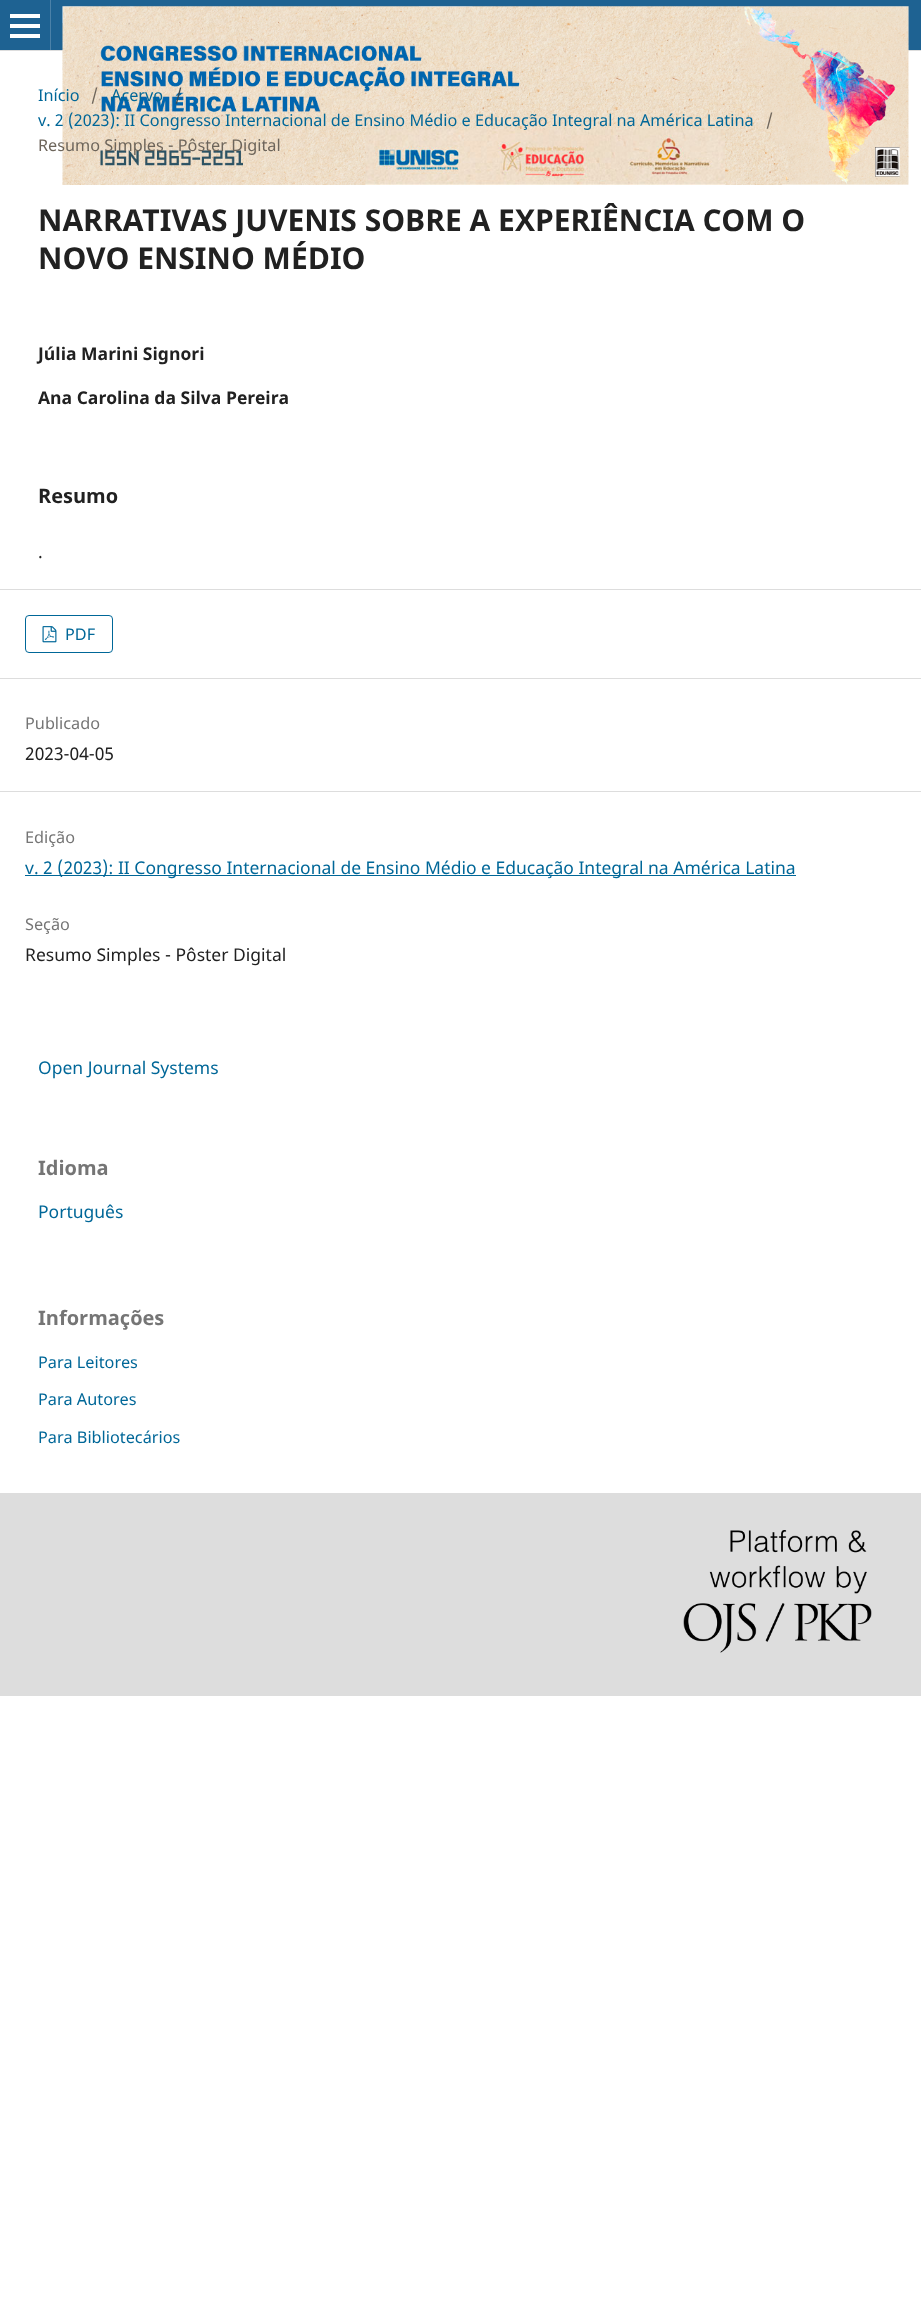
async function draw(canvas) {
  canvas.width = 921;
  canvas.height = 2297;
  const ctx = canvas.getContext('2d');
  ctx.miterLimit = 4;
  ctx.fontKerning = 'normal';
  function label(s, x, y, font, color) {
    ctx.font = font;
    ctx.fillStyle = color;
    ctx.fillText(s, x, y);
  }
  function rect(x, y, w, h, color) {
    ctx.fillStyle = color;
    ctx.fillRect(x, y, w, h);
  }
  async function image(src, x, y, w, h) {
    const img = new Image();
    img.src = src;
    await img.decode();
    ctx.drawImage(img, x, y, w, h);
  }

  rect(0, 0, 921, 2297, '#fff');
  rect(0, 0, 921, 50, '#1e6292');
  rect(0, 50, 921, 1, '#ddd');
  rect(50, 0, 1, 50, '#4b81a8');
  rect(10, 34, 30, 4, '#fff');
  rect(10, 14, 30, 4, '#fff');
  rect(10, 24, 30, 4, '#fff');
  await image('assets/img1.png', 62, 6, 847, 179);
  label('Início', 38, 101, '16.25px Noto Sans', '#006798');
  label('/', 91, 101, '16.25px Noto Sans', '#6d655b');
  label('Acervo', 111, 101, '16.25px Noto Sans', '#006798');
  label('/', 175, 101, '16.25px Noto Sans', '#394c56');
  label('v. 2 (2023): II Congresso Internacional de Ensino Médio e Educação Integral na América Latina', 38, 126, '16.25px Noto Sans', '#006798');
  label('/', 766, 126, '16.25px Noto Sans', '#6d655b');
  label('Resumo Simples - Pôster Digital', 38, 151, '16.25px Noto Sans', '#6d655b');
  label('NARRATIVAS JUVENIS SOBRE A EXPERIÊNCIA COM O', 38, 231, 'bold 30px Noto Sans', '#212121');
  label('NOVO ENSINO MÉDIO', 38, 269, 'bold 30px Noto Sans', '#212121');
  label('Júlia Marini Signori', 38, 360, 'bold 17.5px Noto Sans', '#212121');
  label('Ana Carolina da Silva Pereira', 38, 404, 'bold 17.5px Noto Sans', '#212121');
  label('Resumo', 38, 503, 'bold 20px Noto Sans', '#212121');
  label('.', 38, 558, '17.5px Noto Sans', '#212121');
  rect(0, 589, 921, 1, '#ddd');
  rect(0, 678, 921, 1, '#ddd');
  ctx.beginPath();
  ctx.roundRect(25.5, 615.5, 87, 37, 3.5);
  ctx.strokeStyle = '#006798';
  ctx.stroke();
  await image('assets/img2.png', 42, 626, 15, 17);
  label('PDF', 65, 640, '16.25px Noto Sans', '#006798');
  rect(0, 791, 921, 1, '#ddd');
  label('Publicado', 25, 729, '16.25px Noto Sans', '#757575');
  label('2023-04-05', 25, 760, '17.5px Noto Sans', '#212121');
  label('Edição', 25, 843, '16.25px Noto Sans', '#757575');
  rect(25, 875, 771, 1, '#006798');
  label('v. 2 (2023): II Congresso Internacional de Ensino Médio e Educação Integral na América Latina', 25, 874, '17.5px Noto Sans', '#006798');
  label('Seção', 25, 930, '16.25px Noto Sans', '#757575');
  label('Resumo Simples - Pôster Digital', 25, 961, '17.5px Noto Sans', '#212121');
  label('Open Journal Systems', 38, 1074, '17.5px Noto Sans', '#006798');
  label('Idioma', 38, 1175, 'bold 20px Noto Sans', '#757575');
  label('Português', 38, 1218, '17.5px Noto Sans', '#006798');
  label('Informações', 38, 1325, 'bold 20px Noto Sans', '#757575');
  label('Para Leitores', 38, 1368, '16.25px Noto Sans', '#006798');
  label('Para Autores', 38, 1405, '16.25px Noto Sans', '#006798');
  label('Para Bibliotecários', 38, 1443, '16.25px Noto Sans', '#006798');
  rect(0, 1493, 921, 203, '#ddd');
  await image('assets/img3.png', 683, 1530, 189, 123);
}

draw(document.querySelector('canvas'));
